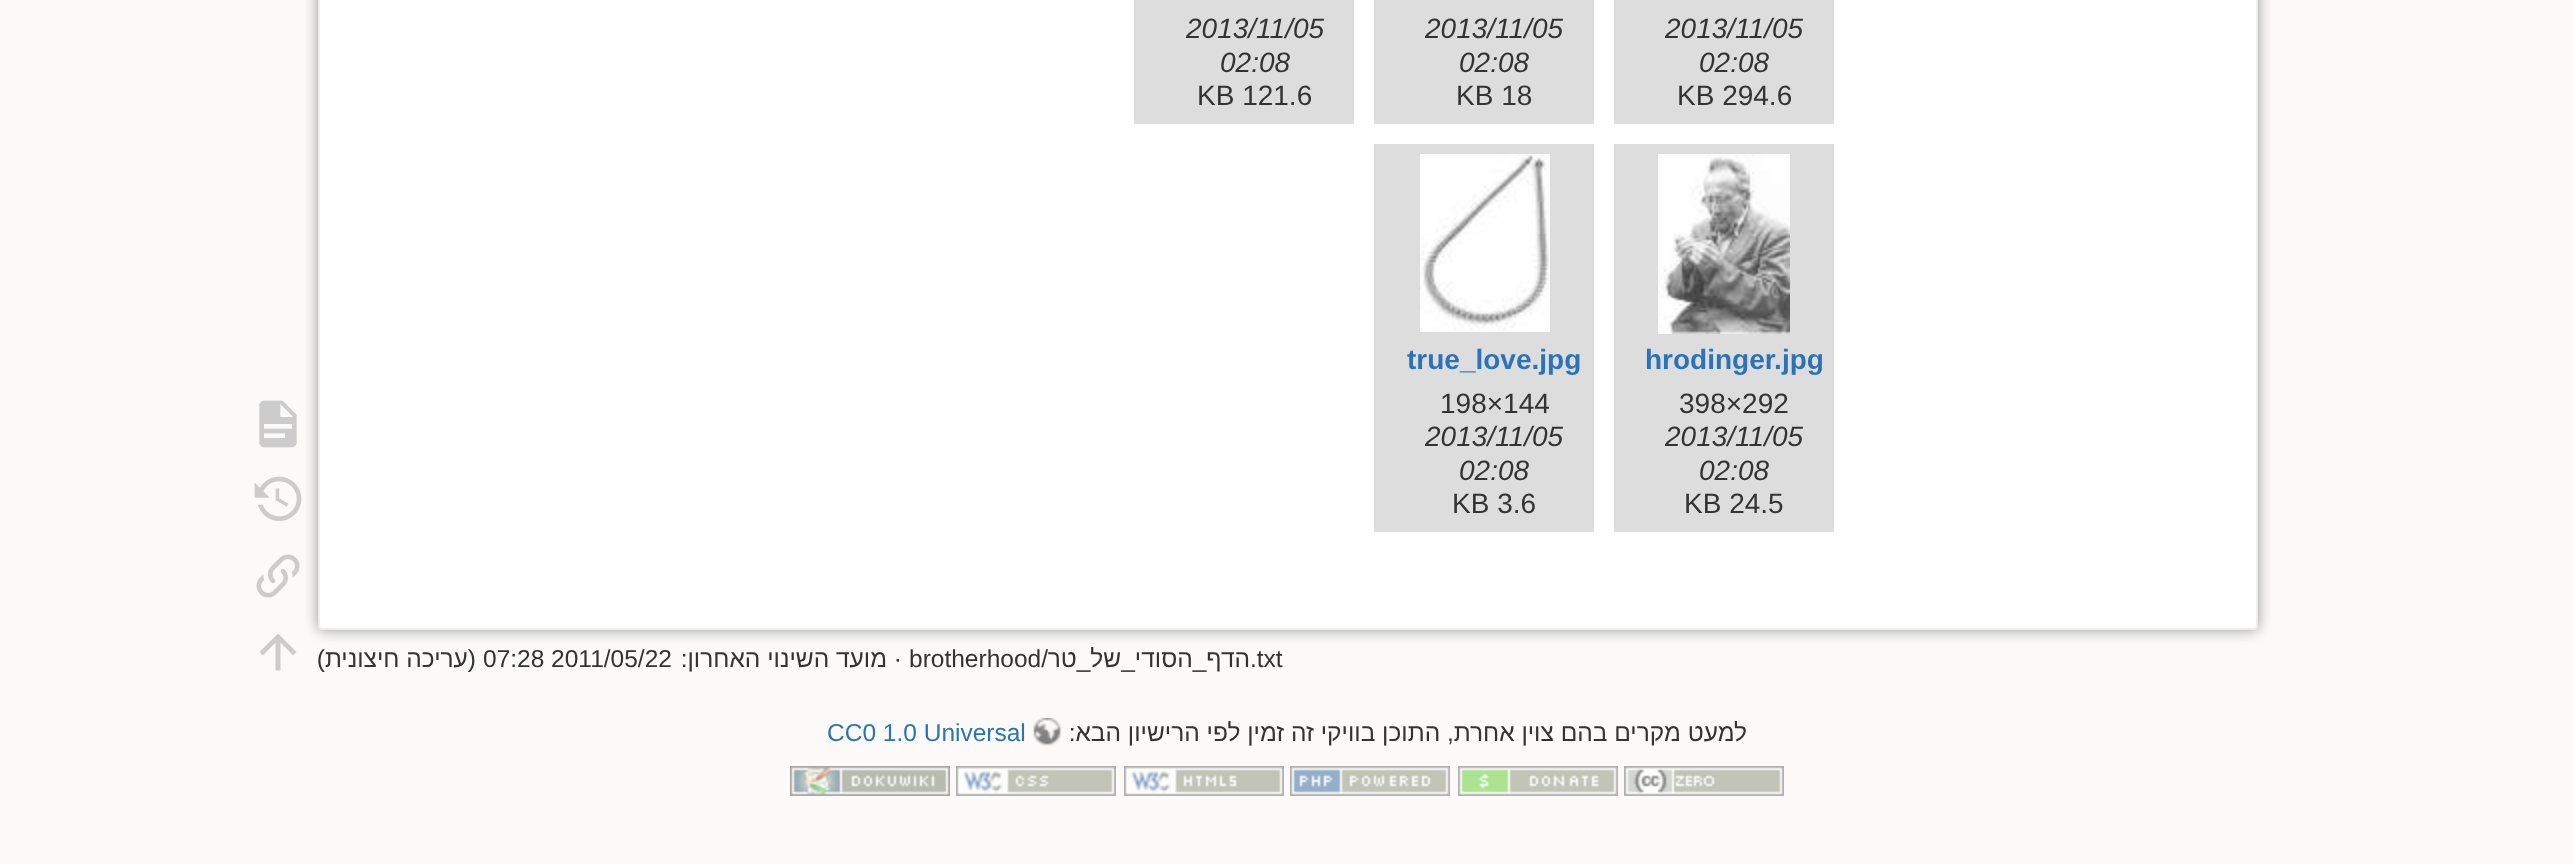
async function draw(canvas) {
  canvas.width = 2574;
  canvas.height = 864;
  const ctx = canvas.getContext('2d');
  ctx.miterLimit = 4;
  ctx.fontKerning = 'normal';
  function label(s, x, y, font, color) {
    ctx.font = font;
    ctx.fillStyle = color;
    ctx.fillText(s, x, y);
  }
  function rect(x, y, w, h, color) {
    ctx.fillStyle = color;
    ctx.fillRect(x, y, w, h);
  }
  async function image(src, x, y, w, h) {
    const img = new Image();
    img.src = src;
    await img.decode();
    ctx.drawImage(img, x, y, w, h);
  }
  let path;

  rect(0, 0, 2574, 864, '#fbfaf9');
  ctx.fillStyle = '#999';
  ctx.filter = 'blur(7px)';
  ctx.beginPath();
  ctx.roundRect(318, -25, 1940, 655, 4);
  ctx.fill();
  ctx.filter = 'none';
  await image('assets/img1.png', 259, 400, 38, 48);
  await image('assets/img2.png', 254, 476, 48, 45);
  await image('assets/img3.png', 256, 554, 44, 44);
  ctx.fillStyle = '#ccc';
  path = new Path2D('M280.5 670.5H275.5V642.5L263 655.5L259.5 652L278 633.5L296.5 652L293 655.5L280.5 642.5Z');
  ctx.fill(path);
  ctx.fillStyle = '#fff';
  ctx.beginPath();
  ctx.roundRect(319, -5, 1938, 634, 3);
  ctx.fill();
  ctx.strokeStyle = '#eee';
  ctx.lineWidth = 2;
  ctx.stroke();
  rect(1134, 0, 220, 124, '#ddd');
  label('2013/11/05', 1186, 38, 'italic 28px Liberation Sans', '#333');
  label('02:08', 1220, 72, 'italic 28px Liberation Sans', '#333');
  label('KB 121.6', 1197, 105, '28px Liberation Sans', '#333');
  rect(1374, 0, 220, 124, '#ddd');
  label('2013/11/05', 1425, 38, 'italic 28px Liberation Sans', '#333');
  label('02:08', 1459, 72, 'italic 28px Liberation Sans', '#333');
  label('KB 18', 1456, 105, '28px Liberation Sans', '#333');
  rect(1614, 0, 220, 124, '#ddd');
  label('2013/11/05', 1665, 38, 'italic 28px Liberation Sans', '#333');
  label('02:08', 1699, 72, 'italic 28px Liberation Sans', '#333');
  label('KB 294.6', 1677, 105, '28px Liberation Sans', '#333');
  rect(1374, 144, 220, 388, '#ddd');
  await image('assets/img4.png', 1420, 154, 130, 178);
  label('true_love.jpg', 1407, 369, 'bold 28px Liberation Sans', '#2b73b7');
  label('198×144', 1440, 413, '28px Liberation Sans', '#333');
  label('2013/11/05', 1425, 446, 'italic 28px Liberation Sans', '#333');
  label('02:08', 1459, 480, 'italic 28px Liberation Sans', '#333');
  label('KB 3.6', 1452, 513, '28px Liberation Sans', '#333');
  rect(1614, 144, 220, 388, '#ddd');
  await image('assets/img5.png', 1658, 154, 132, 180);
  label('hrodinger.jpg', 1645, 369, 'bold 28px Liberation Sans', '#2b73b7');
  label('398×292', 1679, 413, '28px Liberation Sans', '#333');
  label('2013/11/05', 1665, 446, 'italic 28px Liberation Sans', '#333');
  label('02:08', 1699, 480, 'italic 28px Liberation Sans', '#333');
  label('KB 24.5', 1684, 513, '28px Liberation Sans', '#333');
  ctx.direction = 'rtl';
  label('(עריכה חיצונית)', 476, 667, '24.5px Liberation Sans', '#333');
  ctx.direction = 'ltr';
  label('07:28 2011/05/22', 483, 667, '24.5px Liberation Sans', '#333');
  ctx.direction = 'rtl';
  label('· מועד השינוי האחרון:', 902, 667, '24.5px Liberation Sans', '#333');
  ctx.direction = 'ltr';
  label('brotherhood/', 909, 667, '24.5px Liberation Sans', '#333');
  ctx.direction = 'rtl';
  label('הדף_הסודי_של_טר', 1250, 667, '24.5px Liberation Sans', '#333');
  ctx.direction = 'ltr';
  label('.txt', 1250, 667, '24.5px Liberation Sans', '#333');
  label('CC0 1.0 Universal', 827, 741, '24.5px Liberation Sans', '#2b73b7');
  await image('assets/img6.png', 1033, 718, 29, 28);
  ctx.direction = 'rtl';
  label('למעט מקרים בהם צוין אחרת, התוכן בוויקי זה זמין לפי הרישיון הבא:', 1747, 741, '24.5px Liberation Sans', '#333');
  await image('assets/img7.png', 790, 766, 160, 30);
  await image('assets/img8.png', 956, 766, 160, 30);
  await image('assets/img9.png', 1124, 766, 160, 30);
  await image('assets/img10.png', 1290, 766, 160, 30);
  await image('assets/img11.png', 1458, 766, 160, 30);
  await image('assets/img12.png', 1624, 766, 160, 30);
}

draw(document.querySelector('canvas'));
